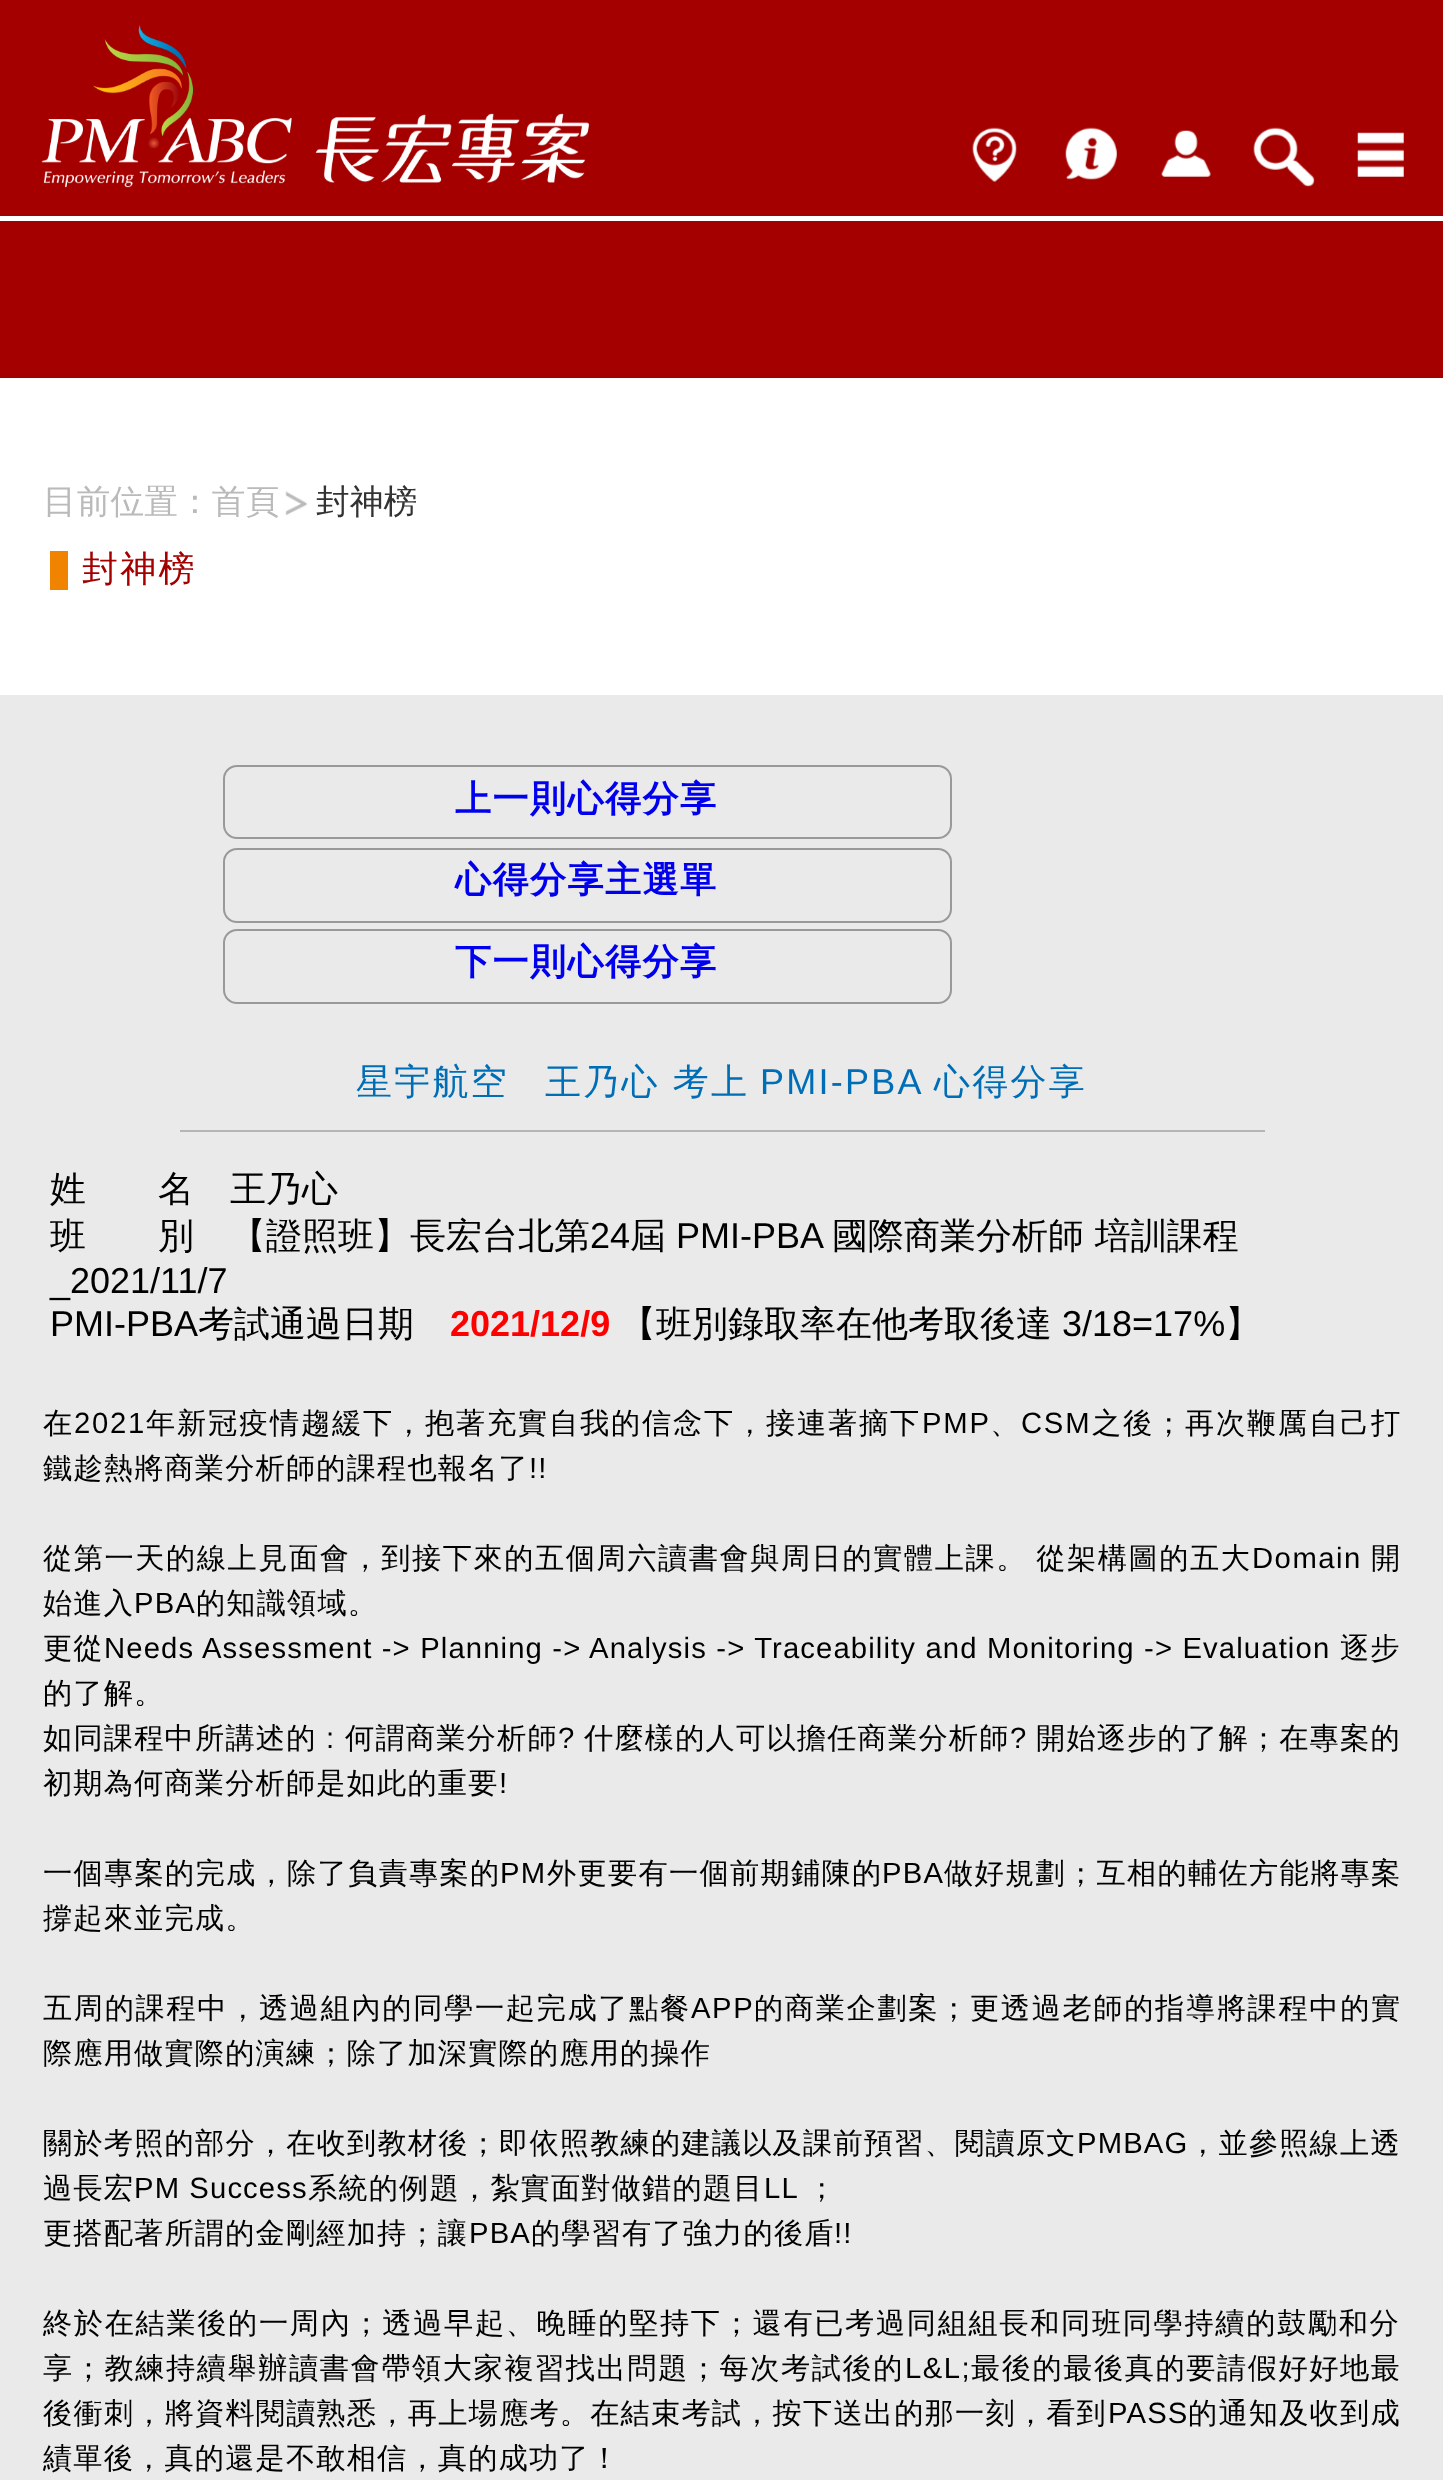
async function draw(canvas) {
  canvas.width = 1443;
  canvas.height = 2480;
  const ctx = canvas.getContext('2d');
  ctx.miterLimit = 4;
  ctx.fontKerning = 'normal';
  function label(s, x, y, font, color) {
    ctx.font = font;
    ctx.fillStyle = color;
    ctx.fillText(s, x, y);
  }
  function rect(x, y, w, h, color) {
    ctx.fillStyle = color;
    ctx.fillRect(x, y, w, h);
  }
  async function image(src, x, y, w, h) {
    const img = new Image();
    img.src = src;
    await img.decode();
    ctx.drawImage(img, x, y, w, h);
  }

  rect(0, 0, 1443, 2480, '#fff');
  rect(0, 0, 1443, 216, '#a40000');
  await image('assets/img1.png', 41, 25, 251, 163);
  await image('assets/img2.png', 315, 113, 275, 70);
  await image('assets/img3.png', 972, 127, 45, 55);
  await image('assets/img4.png', 1065, 127, 52, 53);
  await image('assets/img5.png', 1161, 130, 50, 47);
  await image('assets/img6.png', 1253, 127, 62, 60);
  await image('assets/img7.png', 1357, 132, 47, 45);
  rect(0, 221, 1443, 157, '#a40000');
  label('目前位置：首頁', 43, 513, '500 33.75px WenQuanYi Zen Hei', '#bababa');
  await image('assets/img8.png', 285, 491, 23, 25);
  label('封神榜', 316, 513, '500 33.75px WenQuanYi Zen Hei', '#333');
  rect(50, 551, 18, 39, '#f08300');
  ctx.letterSpacing = '2.25px';
  label('封神榜', 82, 581, '500 36px WenQuanYi Zen Hei', '#a40000');
  rect(0, 695, 1443, 1785, '#eaeaea');
  ctx.beginPath();
  ctx.roundRect(224, 766, 727, 72, 13);
  ctx.strokeStyle = '#999';
  ctx.lineWidth = 2;
  ctx.stroke();
  ctx.letterSpacing = '1.5px';
  label('上一則心得分享', 455, 811, 'bold 36px WenQuanYi Zen Hei', '#00e');
  ctx.beginPath();
  ctx.roundRect(224, 849, 727, 73, 13);
  ctx.stroke();
  label('心得分享主選單', 455, 892, 'bold 36px WenQuanYi Zen Hei', '#00e');
  ctx.beginPath();
  ctx.roundRect(224, 930, 727, 73, 13);
  ctx.stroke();
  label('下一則心得分享', 455, 974, 'bold 36px WenQuanYi Zen Hei', '#00e');
  rect(180, 1130, 1085, 2, '#b5b5b6');
  ctx.letterSpacing = '2.25px';
  label('星宇航空', 356, 1094, '500 36px WenQuanYi Zen Hei', '#006eb6');
  label('王乃心 考上', 545, 1094, '500 36px WenQuanYi Zen Hei', '#006eb6');
  label('PMI-PBA', 760, 1094, '36px Liberation Sans', '#006eb6');
  label('心得分享', 934, 1094, '500 36px WenQuanYi Zen Hei', '#006eb6');
  ctx.letterSpacing = '0px';
  label('姓　　名　王乃心', 50, 1201, '500 36px WenQuanYi Zen Hei', '#000');
  label('班　　別　【證照班】長宏台北第', 50, 1248, '500 36px WenQuanYi Zen Hei', '#000');
  label('24', 590, 1248, '36px Liberation Sans', '#000');
  label('屆', 630, 1248, '500 36px WenQuanYi Zen Hei', '#000');
  label('PMI-PBA', 676, 1248, '36px Liberation Sans', '#000');
  label('國際商業分析師 培訓課程', 832, 1248, '500 36px WenQuanYi Zen Hei', '#000');
  label('_2021/11/7', 50, 1293, '36px Liberation Sans', '#000');
  label('PMI-PBA', 50, 1336, '36px Liberation Sans', '#000');
  label('考試通過日期', 198, 1336, '500 36px WenQuanYi Zen Hei', '#000');
  label('2021/12/9', 450, 1336, 'bold 36px Liberation Sans', '#f00');
  label('【班別錄取率在他考取後達', 620, 1336, '500 36px WenQuanYi Zen Hei', '#000');
  label('3/18=17%', 1062, 1336, '36px Liberation Sans', '#000');
  label('】', 1225, 1336, '500 36px WenQuanYi Zen Hei', '#000');
  ctx.letterSpacing = '1.75px';
  label('在', 43, 1433, '500 29.25px WenQuanYi Zen Hei', '#000');
  label('2021', 74, 1433, '29.25px Liberation Sans', '#000');
  label('年新冠疫情趨緩下，抱著充實自我的信念下，接連著摘下', 146, 1433, '500 29.25px WenQuanYi Zen Hei', '#000');
  label('PMP', 922, 1433, '29.25px Liberation Sans', '#000');
  label('、', 990, 1433, '500 29.25px WenQuanYi Zen Hei', '#000');
  label('CSM', 1021, 1433, '29.25px Liberation Sans', '#000');
  label('之後；再次鞭厲自己打', 1092, 1433, '500 29.25px WenQuanYi Zen Hei', '#000');
  ctx.letterSpacing = '1.12px';
  label('鐵趁熱將商業分析師的課程也報名了', 43, 1478, '500 29.25px WenQuanYi Zen Hei', '#000');
  label('!!', 529, 1478, '29.25px Liberation Sans', '#000');
  ctx.letterSpacing = '1.5px';
  ctx.wordSpacing = '-1px';
  label('從第一天的線上見面會，到接下來的五個周六讀書會與周日的實體上課。 從架構圖的五大', 43, 1568, '500 29.25px WenQuanYi Zen Hei', '#000');
  ctx.wordSpacing = '0px';
  label('Domain', 1252, 1568, '29.25px Liberation Sans', '#000');
  label('開', 1371, 1568, '500 29.25px WenQuanYi Zen Hei', '#000');
  ctx.letterSpacing = '1.12px';
  label('始進入', 43, 1613, '500 29.25px WenQuanYi Zen Hei', '#000');
  label('PBA', 134, 1613, '29.25px Liberation Sans', '#000');
  label('的知識領域。', 196, 1613, '500 29.25px WenQuanYi Zen Hei', '#000');
  label('更從', 43, 1658, '500 29.25px WenQuanYi Zen Hei', '#000');
  ctx.wordSpacing = '0.1px';
  label('Needs Assessment -> Planning -> Analysis -> Traceability and Monitoring -> Evaluation', 104, 1658, '29.25px Liberation Sans', '#000');
  ctx.wordSpacing = '0px';
  label('逐步', 1340, 1658, '500 29.25px WenQuanYi Zen Hei', '#000');
  label('的了解。', 43, 1703, '500 29.25px WenQuanYi Zen Hei', '#000');
  ctx.letterSpacing = '1.15px';
  label('如同課程中所講述的', 43, 1748, '500 29.25px WenQuanYi Zen Hei', '#000');
  label(':', 326, 1748, '29.25px Liberation Sans', '#000');
  label('何謂商業分析師', 345, 1748, '500 29.25px WenQuanYi Zen Hei', '#000');
  label('?', 558, 1748, '29.25px Liberation Sans', '#000');
  label('什麼樣的人可以擔任商業分析師', 584, 1748, '500 29.25px WenQuanYi Zen Hei', '#000');
  label('?', 1010, 1748, '29.25px Liberation Sans', '#000');
  label('開始逐步的了解；在專案的', 1036, 1748, '500 29.25px WenQuanYi Zen Hei', '#000');
  ctx.letterSpacing = '1.12px';
  label('初期為何商業分析師是如此的重要', 43, 1793, '500 29.25px WenQuanYi Zen Hei', '#000');
  label('!', 499, 1793, '29.25px Liberation Sans', '#000');
  ctx.letterSpacing = '1.25px';
  label('一個專案的完成，除了負責專案的', 43, 1883, '500 29.25px WenQuanYi Zen Hei', '#000');
  label('PM', 500, 1883, '29.25px Liberation Sans', '#000');
  label('外更要有一個前期鋪陳的', 547, 1883, '500 29.25px WenQuanYi Zen Hei', '#000');
  label('PBA', 882, 1883, '29.25px Liberation Sans', '#000');
  label('做好規劃；互相的輔佐方能將專案', 944, 1883, '500 29.25px WenQuanYi Zen Hei', '#000');
  ctx.letterSpacing = '1.12px';
  label('撐起來並完成。', 43, 1928, '500 29.25px WenQuanYi Zen Hei', '#000');
  ctx.letterSpacing = '1.6px';
  label('五周的課程中，透過組內的同學一起完成了點餐', 43, 2018, '500 29.25px WenQuanYi Zen Hei', '#000');
  label('APP', 691, 2018, '29.25px Liberation Sans', '#000');
  label('的商業企劃案；更透過老師的指導將課程中的實', 754, 2018, '500 29.25px WenQuanYi Zen Hei', '#000');
  ctx.letterSpacing = '1.12px';
  label('際應用做實際的演練；除了加深實際的應用的操作', 43, 2063, '500 29.25px WenQuanYi Zen Hei', '#000');
  ctx.letterSpacing = '1.15px';
  label('關於考照的部分，在收到教材後；即依照教練的建議以及課前預習、閱讀原文', 43, 2153, '500 29.25px WenQuanYi Zen Hei', '#000');
  label('PMBAG', 1077, 2153, '29.25px Liberation Sans', '#000');
  label('，並參照線上透', 1188, 2153, '500 29.25px WenQuanYi Zen Hei', '#000');
  ctx.letterSpacing = '1.12px';
  label('過長宏', 43, 2198, '500 29.25px WenQuanYi Zen Hei', '#000');
  label('PM Success', 134, 2198, '29.25px Liberation Sans', '#000');
  label('系統的例題，紮實面對做錯的題目', 308, 2198, '500 29.25px WenQuanYi Zen Hei', '#000');
  label('LL', 764, 2198, '29.25px Liberation Sans', '#000');
  label('；', 807, 2198, '500 29.25px WenQuanYi Zen Hei', '#000');
  label('更搭配著所謂的金剛經加持；讓', 43, 2243, '500 29.25px WenQuanYi Zen Hei', '#000');
  label('PBA', 469, 2243, '29.25px Liberation Sans', '#000');
  label('的學習有了強力的後盾', 531, 2243, '500 29.25px WenQuanYi Zen Hei', '#000');
  label('!!', 834, 2243, '29.25px Liberation Sans', '#000');
  ctx.letterSpacing = '1.6px';
  label('終於在結業後的一周內；透過早起、晚睡的堅持下；還有已考過同組組長和同班同學持續的鼓勵和分', 43, 2333, '500 29.25px WenQuanYi Zen Hei', '#000');
  ctx.letterSpacing = '1.5px';
  label('享；教練持續舉辦讀書會帶領大家複習找出問題；每次考試後的', 43, 2378, '500 29.25px WenQuanYi Zen Hei', '#000');
  label('L&L;', 905, 2378, '29.25px Liberation Sans', '#000');
  label('最後的最後真的要請假好好地最', 971, 2378, '500 29.25px WenQuanYi Zen Hei', '#000');
  ctx.letterSpacing = '1.15px';
  label('後衝刺，將資料閱讀熟悉，再上場應考。在結束考試，按下送出的那一刻，看到', 43, 2423, '500 29.25px WenQuanYi Zen Hei', '#000');
  label('PASS', 1108, 2423, '29.25px Liberation Sans', '#000');
  label('的通知及收到成', 1188, 2423, '500 29.25px WenQuanYi Zen Hei', '#000');
  ctx.letterSpacing = '1.12px';
  label('績單後，真的還是不敢相信，真的成功了！', 43, 2468, '500 29.25px WenQuanYi Zen Hei', '#000');
}

draw(document.querySelector('canvas'));
